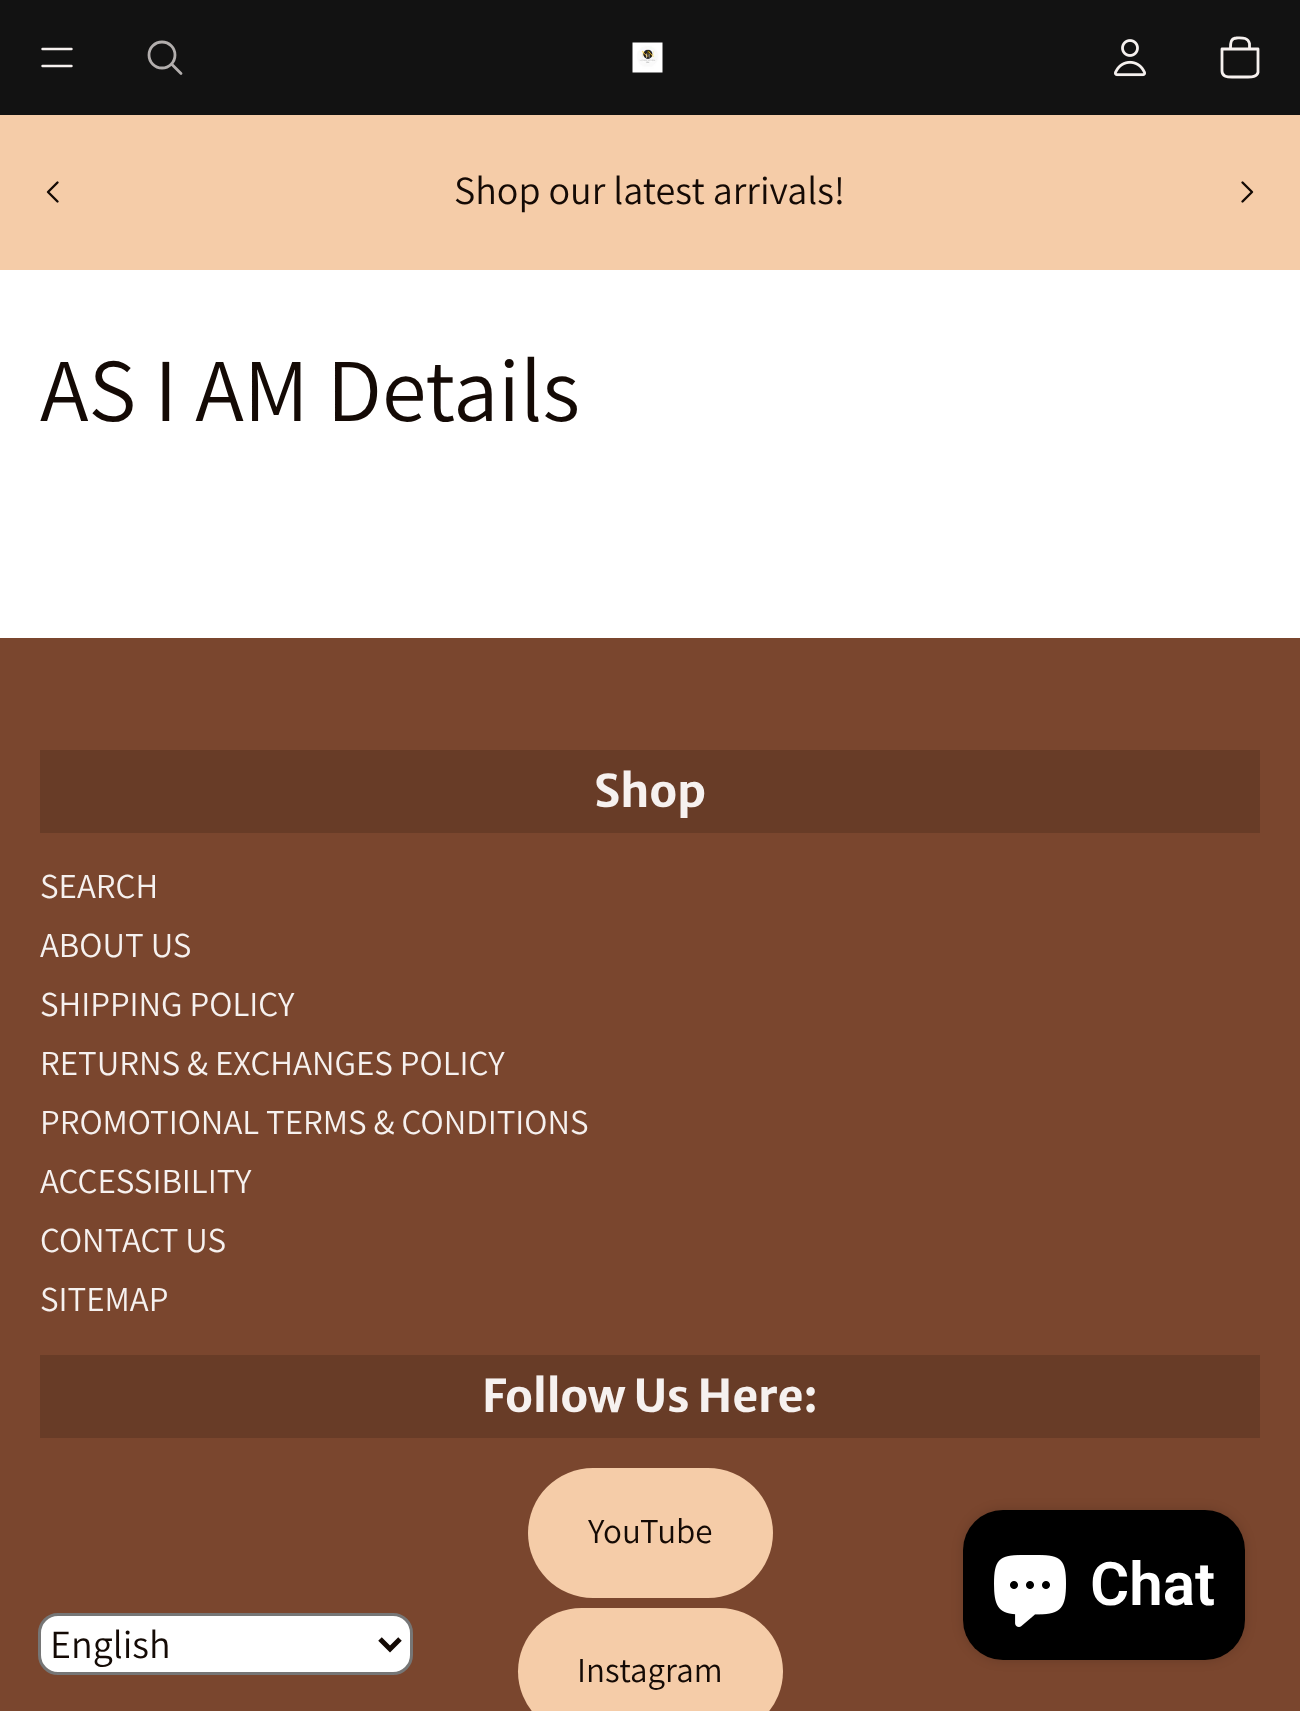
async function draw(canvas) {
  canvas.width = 1300;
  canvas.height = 1711;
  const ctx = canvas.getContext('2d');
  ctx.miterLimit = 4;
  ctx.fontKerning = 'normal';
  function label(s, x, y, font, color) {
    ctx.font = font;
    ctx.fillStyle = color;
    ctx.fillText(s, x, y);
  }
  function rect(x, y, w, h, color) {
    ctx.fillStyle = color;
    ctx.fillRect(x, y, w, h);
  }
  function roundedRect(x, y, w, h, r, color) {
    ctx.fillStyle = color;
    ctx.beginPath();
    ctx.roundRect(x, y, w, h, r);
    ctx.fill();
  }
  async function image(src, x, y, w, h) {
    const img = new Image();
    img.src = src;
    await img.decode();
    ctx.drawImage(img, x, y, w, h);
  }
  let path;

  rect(0, 0, 1300, 1711, '#fff');
  rect(0, 0, 1300, 115, '#121212');
  path = new Path2D('M42.5 49H71.5M42.5 66H71.5');
  ctx.strokeStyle = '#f6f1ef';
  ctx.lineWidth = 2.4;
  ctx.lineCap = 'round';
  ctx.stroke(path);
  ctx.beginPath();
  ctx.arc(162, 55, 13, 0, 2 * Math.PI);
  ctx.strokeStyle = '#b2aead';
  ctx.lineWidth = 2.8;
  ctx.stroke();
  path = new Path2D('M172 64.5L181 73.5');
  ctx.lineJoin = 'round';
  ctx.stroke(path);
  await image('assets/img1.png', 632, 42, 31, 31);
  await image('assets/img2.png', 1114, 39, 32, 38);
  path = new Path2D('M1222 49H1258V72.5C1256.5 77 1252 77 1248 77H1232C1227.5 77 1222 77 1222 71ZM1236.5 38C1241.5 38 1248 37 1249.5 43.5V49H1230.5C1230.5 44 1230 38 1237 38');
  ctx.strokeStyle = '#f6f1ef';
  ctx.stroke(path);
  rect(0, 115, 1300, 155, '#f5cca8');
  label('Shop our latest arrivals!', 454, 204, '40px Assistant', '#140a05');
  path = new Path2D('M57.5 182.5L48 192L57.5 201.5');
  ctx.strokeStyle = '#140a05';
  ctx.lineWidth = 2.4;
  ctx.stroke(path);
  path = new Path2D('M1242.5 182.5L1252 192L1242.5 201.5');
  ctx.stroke(path);
  label('AS I AM Details', 40, 421, '90px Assistant', '#140a05');
  rect(0, 638, 1300, 1073, '#7a462e');
  rect(40, 750, 1220, 83, '#683c27');
  label('Shop', 594, 807, 'bold 45px Merriweather Sans', '#f6f1ef');
  label('SEARCH', 40, 898, '35px Assistant', '#f6f1ef');
  label('ABOUT US', 40, 957, '35px Assistant', '#f6f1ef');
  label('SHIPPING POLICY', 40, 1016, '35px Assistant', '#f6f1ef');
  label('RETURNS & EXCHANGES POLICY', 40, 1075, '35px Assistant', '#f6f1ef');
  label('PROMOTIONAL TERMS & CONDITIONS', 40, 1134, '35px Assistant', '#f6f1ef');
  label('ACCESSIBILITY', 40, 1193, '35px Assistant', '#f6f1ef');
  label('CONTACT US', 40, 1252, '35px Assistant', '#f6f1ef');
  label('SITEMAP', 40, 1311, '35px Assistant', '#f6f1ef');
  rect(40, 1355, 1220, 83, '#683c27');
  label('Follow Us Here:', 482, 1412, 'bold 45px Merriweather Sans', '#f6f1ef');
  roundedRect(528, 1468, 245, 130, 65, '#f5cca8');
  label('YouTube', 588, 1543, '35px Assistant', '#140a05');
  roundedRect(518, 1608, 265, 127, 63.5, '#f5cca8');
  label('Instagram', 577, 1682, '35px Assistant', '#140a05');
  ctx.fillStyle = '#00000026';
  ctx.filter = 'blur(6px)';
  ctx.beginPath();
  ctx.roundRect(963, 1510, 282, 150, 40);
  ctx.fill();
  ctx.filter = 'none';
  roundedRect(963, 1510, 282, 150, 40, '#000');
  await image('assets/img3.png', 994, 1555, 72, 72);
  label('Chat', 1090, 1605, '600 60px Roboto', '#fff');
  ctx.beginPath();
  ctx.roundRect(39.5, 1614.5, 372, 59, 18.5);
  ctx.fill();
  ctx.strokeStyle = '#767676';
  ctx.lineWidth = 3;
  ctx.lineJoin = 'miter';
  ctx.stroke();
  path = new Path2D('M380 1639L390 1649L400 1639');
  ctx.strokeStyle = '#140a05';
  ctx.lineWidth = 5;
  ctx.lineCap = 'butt';
  ctx.stroke(path);
  label('English', 50, 1658, '40px Assistant', '#140a05');
}

draw(document.querySelector('canvas'));
